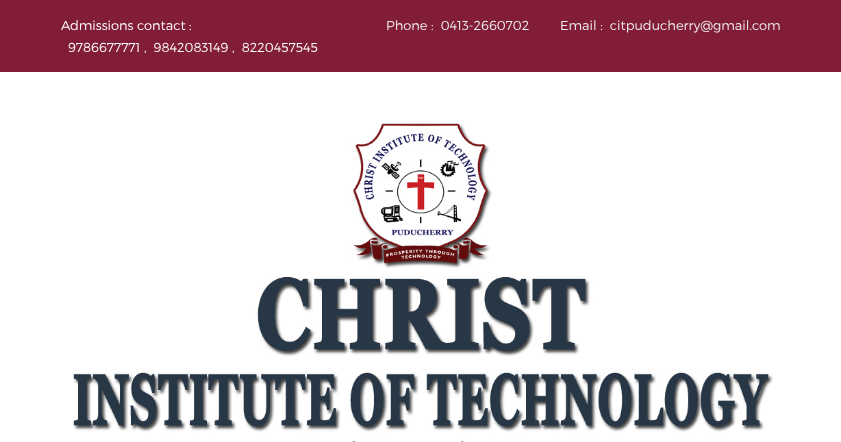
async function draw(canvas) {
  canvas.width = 841;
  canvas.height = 442;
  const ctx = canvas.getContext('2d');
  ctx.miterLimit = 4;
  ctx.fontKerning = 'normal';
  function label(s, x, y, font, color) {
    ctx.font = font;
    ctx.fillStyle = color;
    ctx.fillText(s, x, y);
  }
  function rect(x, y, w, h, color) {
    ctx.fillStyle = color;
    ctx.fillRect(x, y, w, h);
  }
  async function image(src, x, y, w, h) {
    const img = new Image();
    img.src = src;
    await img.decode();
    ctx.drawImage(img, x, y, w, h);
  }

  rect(0, 0, 841, 442, '#fff');
  rect(0, 0, 841, 72, '#821d38');
  label('Admissions contact :', 61, 30, '300 13px Montserrat', '#fff');
  label('9786677771 ,  9842083149 ,  8220457545', 68, 52, '300 13px Montserrat', '#fff');
  label('Phone :  0413-2660702', 386, 30, '300 13px Montserrat', '#ededed');
  label('Email :  citpuducherry@gmail.com', 560, 30, '300 13px Montserrat', '#ededed');
  await image('assets/img1.png', 73, 123, 700, 319);
}

draw(document.querySelector('canvas'));
